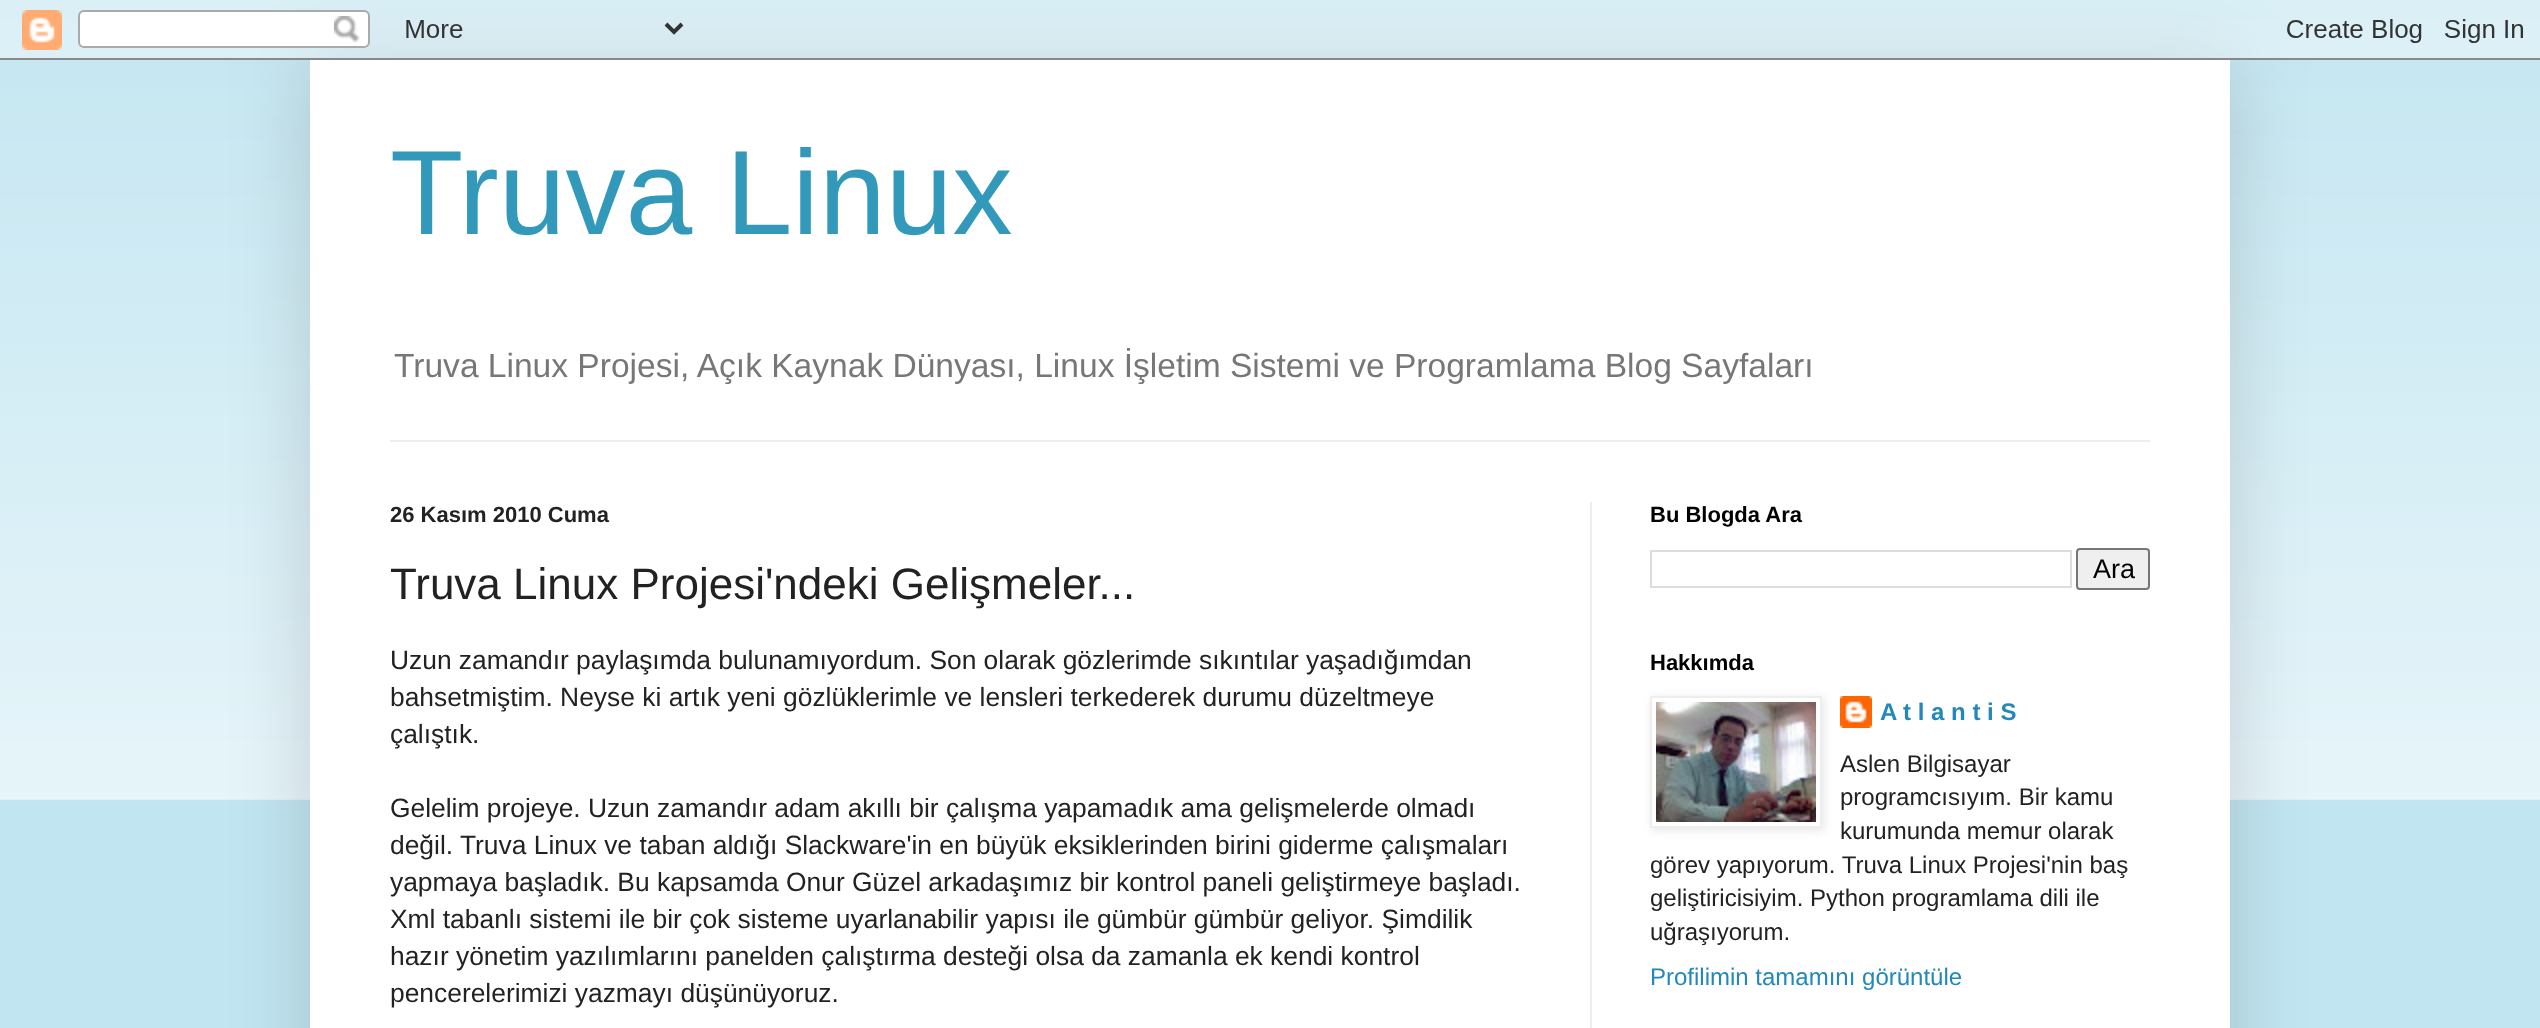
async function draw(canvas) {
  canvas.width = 2540;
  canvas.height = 1028;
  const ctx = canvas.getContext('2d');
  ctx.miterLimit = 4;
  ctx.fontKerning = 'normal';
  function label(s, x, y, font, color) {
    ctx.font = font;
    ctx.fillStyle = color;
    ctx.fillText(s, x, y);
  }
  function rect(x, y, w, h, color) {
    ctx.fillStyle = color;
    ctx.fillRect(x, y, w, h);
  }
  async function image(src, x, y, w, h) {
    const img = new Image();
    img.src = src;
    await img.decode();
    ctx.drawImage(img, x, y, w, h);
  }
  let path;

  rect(0, 0, 2540, 1028, '#c1e5f1');
  await image('assets/img2.png', 0, 20, 2540, 780);
  ctx.fillStyle = '#00000026';
  ctx.filter = 'blur(40px)';
  ctx.beginPath();
  ctx.rect(310, 60, 1920, 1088);
  ctx.fill();
  ctx.filter = 'none';
  await image('assets/img1.png', 0, 0, 2540, 60);
  rect(310, 60, 1920, 968, '#fff');
  label('Truva Linux', 390, 234, '120px Liberation Sans', '#39b');
  ctx.wordSpacing = '-0.1px';
  label('Truva Linux Projesi, Açık Kaynak Dünyası, Linux İşletim Sistemi ve Programlama Blog Sayfaları', 394, 377, '33.6px Liberation Sans', '#777');
  rect(390, 440, 1760, 2, '#eee');
  rect(1590, 502, 2, 526, '#eee');
  ctx.wordSpacing = '0px';
  label('26 Kasım 2010 Cuma', 390, 522, 'bold 22px Liberation Sans', '#222');
  label('Truva Linux Projesi\'ndeki Gelişmeler...', 390, 599, '44px Liberation Sans', '#222');
  ctx.wordSpacing = '-0.1px';
  label('Uzun zamandır paylaşımda bulunamıyordum. Son olarak gözlerimde sıkıntılar yaşadığımdan', 390, 669, '26.4px Liberation Sans', '#222');
  ctx.wordSpacing = '0px';
  label('bahsetmiştim. Neyse ki artık yeni gözlüklerimle ve lensleri terkederek durumu düzeltmeye', 390, 706, '26.4px Liberation Sans', '#222');
  label('çalıştık.', 390, 743, '26.4px Liberation Sans', '#222');
  label('Gelelim projeye. Uzun zamandır adam akıllı bir çalışma yapamadık ama gelişmelerde olmadı', 390, 817, '26.4px Liberation Sans', '#222');
  label('değil. Truva Linux ve taban aldığı Slackware\'in en büyük eksiklerinden birini giderme çalışmaları', 390, 854, '26.4px Liberation Sans', '#222');
  label('yapmaya başladık. Bu kapsamda Onur Güzel arkadaşımız bir kontrol paneli geliştirmeye başladı.', 390, 891, '26.4px Liberation Sans', '#222');
  label('Xml tabanlı sistemi ile bir çok sisteme uyarlanabilir yapısı ile gümbür gümbür geliyor. Şimdilik', 390, 928, '26.4px Liberation Sans', '#222');
  label('hazır yönetim yazılımlarını panelden çalıştırma desteği olsa da zamanla ek kendi kontrol', 390, 965, '26.4px Liberation Sans', '#222');
  label('pencerelerimizi yazmayı düşünüyoruz.', 390, 1002, '26.4px Liberation Sans', '#222');
  label('Bu Blogda Ara', 1650, 522, 'bold 22px Liberation Sans', '#000');
  ctx.strokeStyle = '#ddd';
  ctx.lineWidth = 2;
  ctx.strokeRect(1651, 551, 420, 36);
  ctx.fillStyle = '#efefef';
  ctx.beginPath();
  ctx.roundRect(2077, 549, 72, 40, 3);
  ctx.fill();
  ctx.strokeStyle = '#767676';
  ctx.stroke();
  label('Ara', 2093, 578, '27px Liberation Sans', '#000');
  label('Hakkımda', 1650, 670, 'bold 22px Liberation Sans', '#000');
  ctx.save();
  path = new Path2D('M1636 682H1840V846H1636ZM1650 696H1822V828H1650Z');
  ctx.clip(path, 'evenodd');
  ctx.fillStyle = '#0000001a';
  ctx.filter = 'blur(5px)';
  ctx.beginPath();
  ctx.rect(1652, 698, 172, 132);
  ctx.fill();
  ctx.filter = 'none';
  ctx.restore();
  ctx.strokeStyle = '#eee';
  ctx.strokeRect(1651, 697, 170, 130);
  await image('assets/img3.png', 1656, 702, 160, 120);
  await image('assets/img4.png', 1840, 696, 32, 32);
  label('A t l a n t i S', 1880, 720, 'bold 24px Liberation Sans', '#28b');
  label('Aslen Bilgisayar', 1840, 772, '24px Liberation Sans', '#222');
  label('programcısıyım. Bir kamu', 1840, 805, '24px Liberation Sans', '#222');
  label('kurumunda memur olarak', 1840, 839, '24px Liberation Sans', '#222');
  label('görev yapıyorum. Truva Linux Projesi\'nin baş', 1650, 873, '24px Liberation Sans', '#222');
  label('geliştiricisiyim. Python programlama dili ile', 1650, 906, '24px Liberation Sans', '#222');
  label('uğraşıyorum.', 1650, 940, '24px Liberation Sans', '#222');
  label('Profilimin tamamını görüntüle', 1650, 985, '24px Liberation Sans', '#28b');
}

draw(document.querySelector('canvas'));
